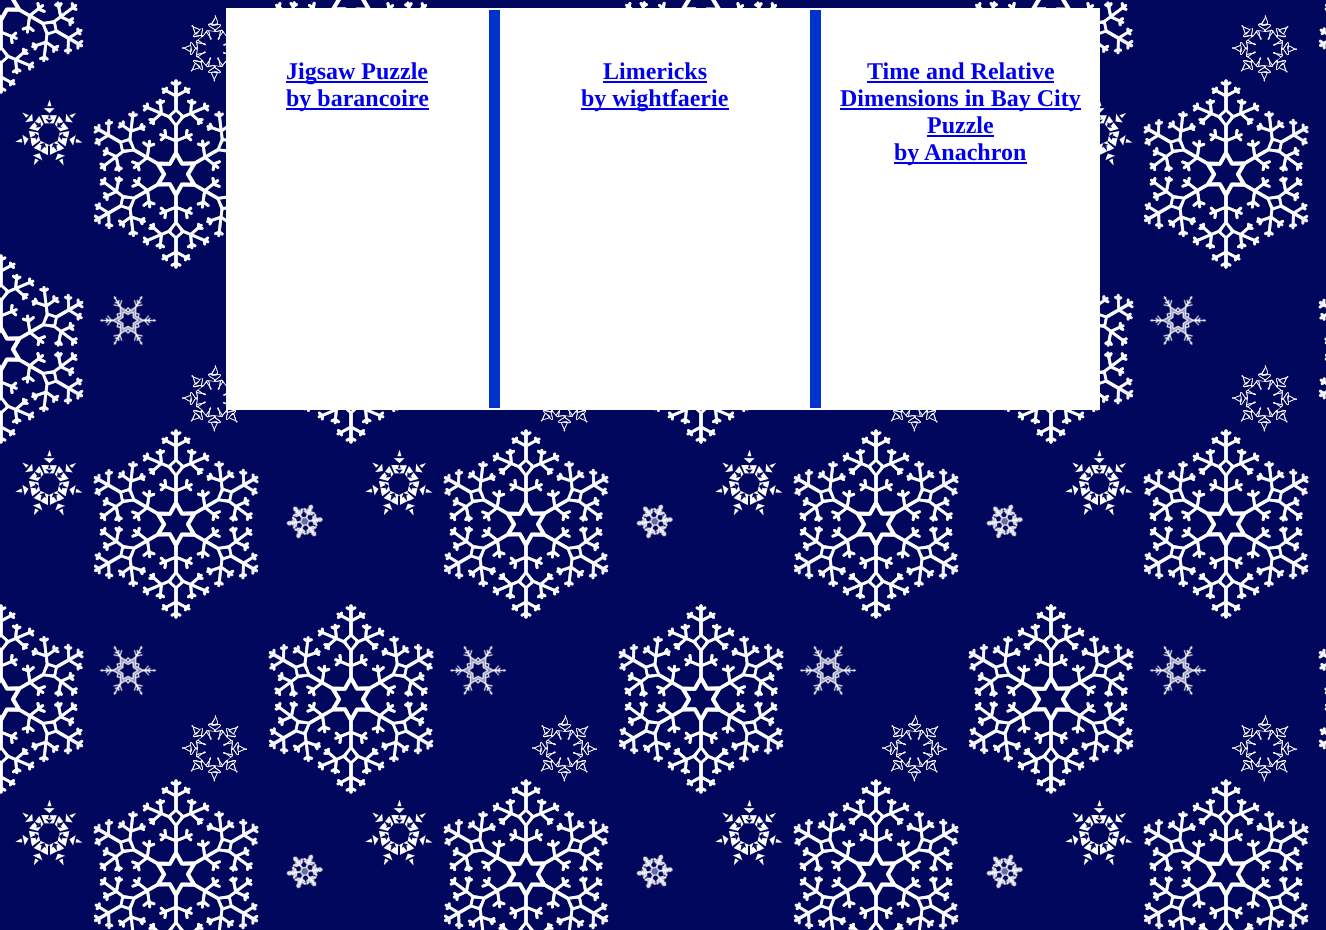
async function draw(canvas) {
  canvas.width = 1326;
  canvas.height = 930;
  const ctx = canvas.getContext('2d');
  ctx.miterLimit = 4;
  ctx.fontKerning = 'normal';
  function label(s, x, y, font, color) {
    ctx.font = font;
    ctx.fillStyle = color;
    ctx.fillText(s, x, y);
  }
  function rect(x, y, w, h, color) {
    ctx.fillStyle = color;
    ctx.fillRect(x, y, w, h);
  }
  async function image(src, x, y, w, h) {
    const img = new Image();
    img.src = src;
    await img.decode();
    ctx.drawImage(img, x, y, w, h);
  }

  rect(0, 0, 1326, 930, '#fff');
  await image('assets/img1.png', 0, 0, 1326, 930);
  rect(226, 8, 874, 402, '#fff');
  rect(286, 81, 142, 2, '#00e');
  label('Jigsaw Puzzle', 286, 79, 'bold 24px Liberation Serif', '#00e');
  rect(286, 108, 143, 2, '#00e');
  label('by barancoire', 286, 106, 'bold 24px Liberation Serif', '#00e');
  rect(489, 10, 11, 398, '#03c');
  label('Limericks', 603, 79, 'bold 24px Liberation Serif', '#00e');
  rect(603, 81, 104, 2, '#00e');
  rect(581, 108, 148, 2, '#00e');
  label('by wightfaerie', 581, 106, 'bold 24px Liberation Serif', '#00e');
  rect(810, 10, 11, 398, '#03c');
  label('Time and Relative', 867, 79, 'bold 24px Liberation Serif', '#00e');
  rect(867, 81, 187, 2, '#00e');
  rect(840, 108, 241, 2, '#00e');
  label('Dimensions in Bay City', 840, 106, 'bold 24px Liberation Serif', '#00e');
  label('Puzzle', 927, 133, 'bold 24px Liberation Serif', '#00e');
  rect(927, 135, 67, 2, '#00e');
  rect(894, 162, 133, 2, '#00e');
  label('by Anachron', 894, 160, 'bold 24px Liberation Serif', '#00e');
}

draw(document.querySelector('canvas'));
